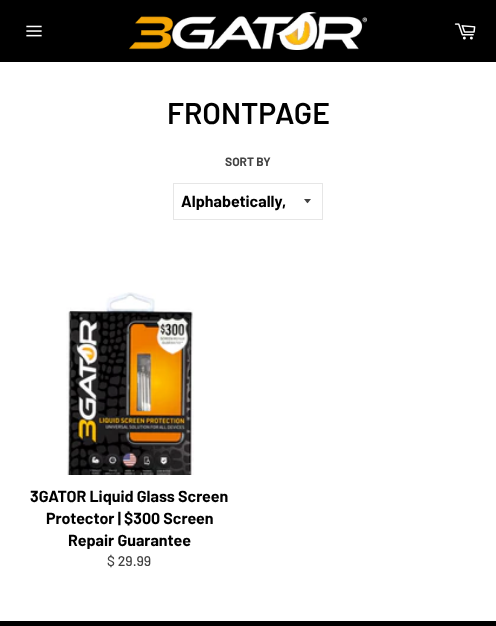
async function draw(canvas) {
  canvas.width = 496;
  canvas.height = 626;
  const ctx = canvas.getContext('2d');
  ctx.miterLimit = 4;
  ctx.fontKerning = 'normal';
  function label(s, x, y, font, color) {
    ctx.font = font;
    ctx.fillStyle = color;
    ctx.fillText(s, x, y);
  }
  function rect(x, y, w, h, color) {
    ctx.fillStyle = color;
    ctx.fillRect(x, y, w, h);
  }
  async function image(src, x, y, w, h) {
    const img = new Image();
    img.src = src;
    await img.decode();
    ctx.drawImage(img, x, y, w, h);
  }
  let path;

  rect(0, 0, 496, 626, '#fff');
  rect(0, 0, 496, 62, '#000');
  await image('assets/img1.png', 26, 25, 16, 12);
  await image('assets/img2.png', 129, 12, 238, 38);
  await image('assets/img3.png', 454, 23, 22, 17);
  label('FRONTPAGE', 167, 124, '600 30px Barlow', '#000');
  label('SORT BY', 225, 166, 'bold 12px Barlow', '#424242');
  path = new Path2D('M304 199C308.5 204.5 306.5 204.5 311 199Z');
  ctx.fill(path);
  ctx.strokeStyle = '#e6e6e6';
  ctx.strokeRect(173.5, 183.5, 149, 36);
  label('Alphabetically,', 181, 207, 'bold 16px Barlow', '#000');
  await image('assets/img4.png', 66, 292, 128, 183);
  label('3GATOR Liquid Glass Screen', 30, 502, 'bold 16px Barlow', '#000');
  label('Protector | $300 Screen', 46, 524, 'bold 16px Barlow', '#000');
  label('Repair Guarantee', 68, 546, 'bold 16px Barlow', '#000');
  label('$ 29.99', 107, 566, '500 14px Barlow', '#424242');
  rect(0, 621, 496, 5, '#000');
}

draw(document.querySelector('canvas'));
